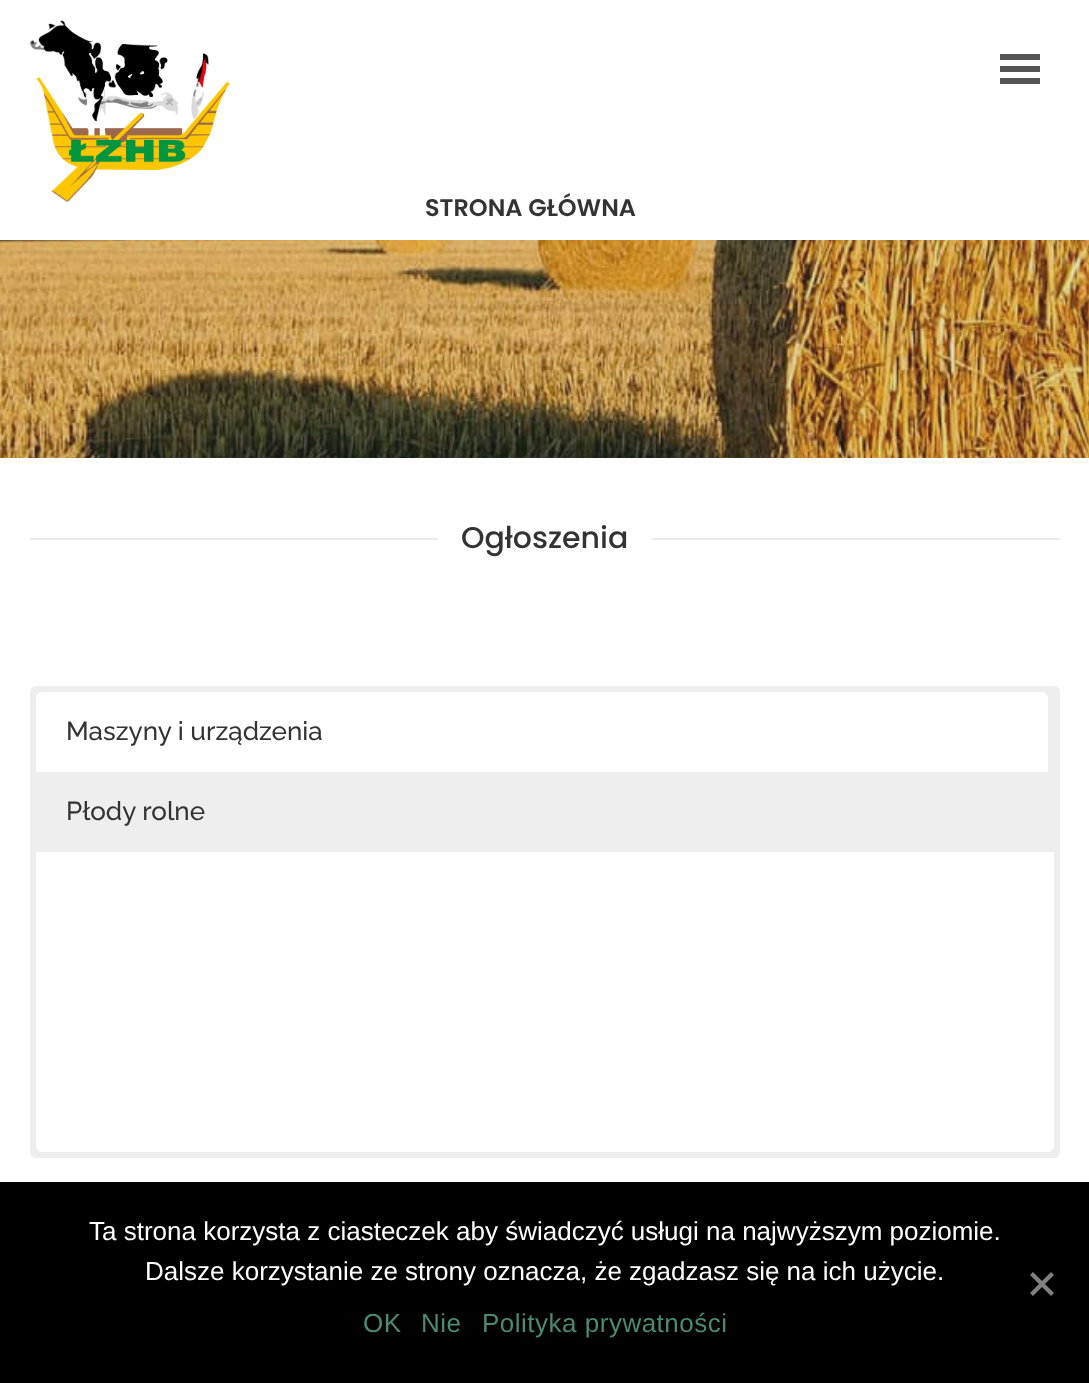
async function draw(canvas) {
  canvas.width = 1089;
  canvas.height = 1383;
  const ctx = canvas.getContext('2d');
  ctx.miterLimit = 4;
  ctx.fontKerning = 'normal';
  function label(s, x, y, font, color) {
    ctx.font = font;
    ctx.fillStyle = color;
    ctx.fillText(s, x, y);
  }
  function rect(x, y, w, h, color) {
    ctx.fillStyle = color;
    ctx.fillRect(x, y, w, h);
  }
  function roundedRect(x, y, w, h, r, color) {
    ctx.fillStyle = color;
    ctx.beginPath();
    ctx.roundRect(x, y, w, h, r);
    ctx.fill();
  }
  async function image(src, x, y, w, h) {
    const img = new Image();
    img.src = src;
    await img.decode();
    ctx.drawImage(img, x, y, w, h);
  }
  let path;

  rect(0, 0, 1089, 1383, '#fff');
  await image('assets/img1.png', 30, 20, 200, 182);
  rect(1000, 66, 40, 6, '#555');
  rect(1000, 54, 40, 6, '#555');
  rect(1000, 78, 40, 6, '#555');
  label('STRONA GŁÓWNA', 425, 216, '600 24px Poppins', '#333');
  await image('assets/img2.png', 0, 240, 1089, 218);
  rect(30, 538, 408, 2, '#ebebeb');
  label('Ogłoszenia', 461, 548, '500 30px Poppins', '#333');
  rect(652, 538, 408, 2, '#ebebeb');
  roundedRect(30, 686, 1030, 472, 6, '#eee');
  ctx.fillStyle = '#fff';
  ctx.beginPath();
  ctx.roundRect(36, 692, 1012, 80, [6, 6, 0, 0]);
  ctx.fill();
  label('Maszyny i urządzenia', 66, 740, '500 26px Raleway', '#333');
  label('Płody rolne', 66, 820, '500 26px Raleway', '#333');
  ctx.fillStyle = '#fff';
  ctx.beginPath();
  ctx.roundRect(36, 852, 1018, 300, [0, 0, 6, 6]);
  ctx.fill();
  rect(0, 1182, 1089, 201, '#000');
  label('Ta strona korzysta z ciasteczek aby świadczyć usługi na najwyższym poziomie.', 89, 1240, '26px Liberation Sans', '#fff');
  label('Dalsze korzystanie ze strony oznacza, że zgadzasz się na ich użycie.', 145, 1280, '26px Liberation Sans', '#fff');
  ctx.fillStyle = '#808080';
  path = new Path2D('M1051 1272L1054 1275L1033 1296L1030 1293Z');
  ctx.fill(path);
  path = new Path2D('M1030 1275L1033 1272L1054 1293L1051 1296Z');
  ctx.fill(path);
  ctx.letterSpacing = '0.5px';
  label('OK', 363, 1332, '26px Liberation Sans', '#4a8b71');
  label('Nie', 421, 1332, '26px Liberation Sans', '#4a8b71');
  label('Polityka prywatności', 482, 1332, '26px Liberation Sans', '#4a8b71');
}

draw(document.querySelector('canvas'));
